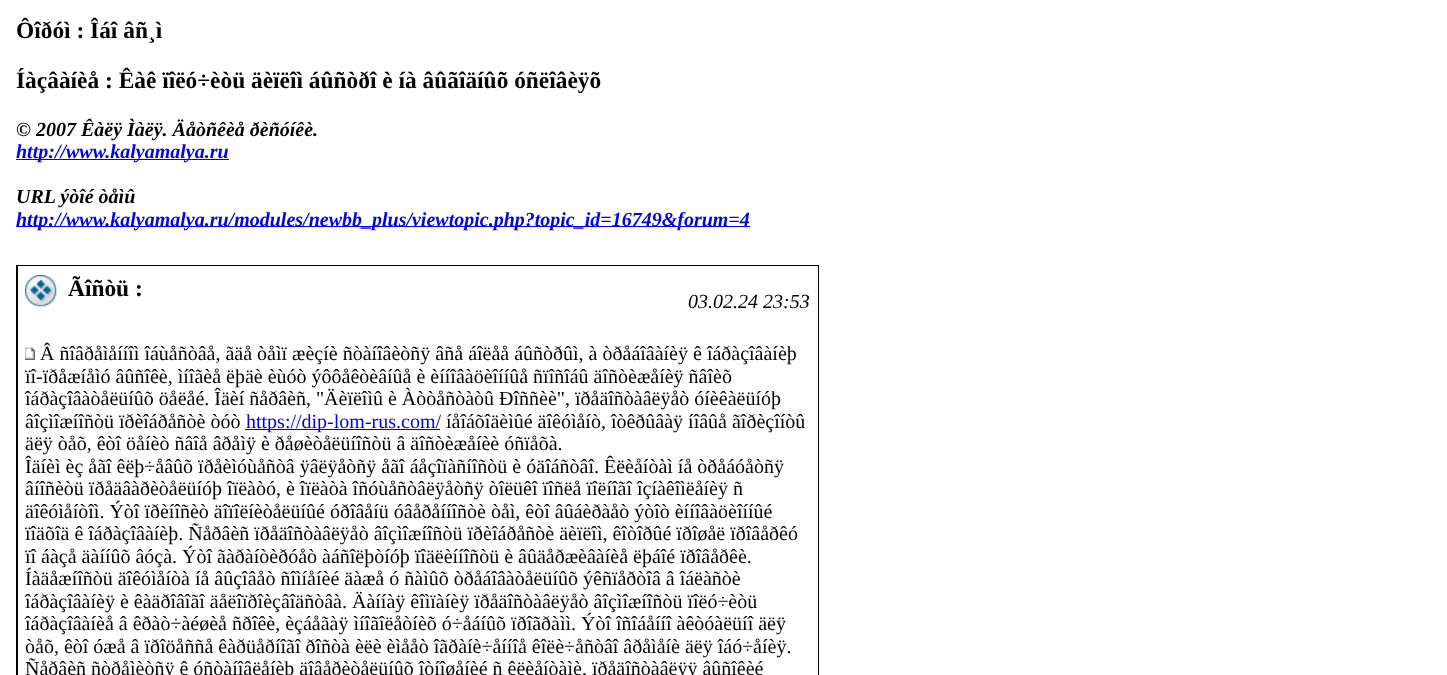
async function draw(canvas) {
  canvas.width = 1447;
  canvas.height = 675;
  const ctx = canvas.getContext('2d');
  ctx.miterLimit = 4;
  ctx.fontKerning = 'normal';
  function label(s, x, y, font, color) {
    ctx.font = font;
    ctx.fillStyle = color;
    ctx.fillText(s, x, y);
  }
  function rect(x, y, w, h, color) {
    ctx.fillStyle = color;
    ctx.fillRect(x, y, w, h);
  }
  async function image(src, x, y, w, h) {
    const img = new Image();
    img.src = src;
    await img.decode();
    ctx.drawImage(img, x, y, w, h);
  }

  rect(0, 0, 1447, 675, '#fff');
  label('Ôîðóì : Îáî âñ¸ì', 16, 38, 'bold 23.4px Liberation Serif', '#000');
  label('Íàçâàíèå : Êàê ïîëó÷èòü äèïëîì áûñòðî è íà âûãîäíûõ óñëîâèÿõ', 16, 88, 'bold 23.4px Liberation Serif', '#000');
  label('© 2007 Êàëÿ Ìàëÿ. Äåòñêèå ðèñóíêè.', 16, 136, 'italic bold 20px Liberation Serif', '#000');
  rect(16, 159, 213, 1, '#00e');
  label('http://www.kalyamalya.ru', 16, 158, 'italic bold 20px Liberation Serif', '#00e');
  label('URL ýòîé òåìû', 16, 203, 'italic bold 20px Liberation Serif', '#000');
  rect(16, 226, 734, 1, '#00e');
  label('http://www.kalyamalya.ru/modules/newbb_plus/viewtopic.php?topic_id=16749&forum=4', 16, 226, 'italic bold 20px Liberation Serif', '#00e');
  rect(16, 265, 803, 410, '#000');
  rect(18, 266, 800, 409, '#fff');
  await image('assets/img1.png', 25, 275, 32, 32);
  label('Ãîñòü :', 68, 296, 'bold 23.4px Liberation Serif', '#000');
  label('03.02.24 23:53', 688, 308, 'italic 20px Liberation Serif', '#000');
  await image('assets/img2.png', 25, 347, 10, 13);
  label('Â ñîâðåìåííîì îáùåñòâå, ãäå òåìï æèçíè ñòàíîâèòñÿ âñå áîëåå áûñòðûì, à òðåáîâàíèÿ ê îáðàçîâàíèþ', 40, 360, '20px Liberation Serif', '#000');
  label('ïî-ïðåæíåìó âûñîêè, ìíîãèå ëþäè èùóò ýôôåêòèâíûå è èííîâàöèîííûå ñïîñîáû äîñòèæåíèÿ ñâîèõ', 25, 383, '20px Liberation Serif', '#000');
  label('îáðàçîâàòåëüíûõ öåëåé. Îäèí ñåðâèñ, "Äèïëîìû è Àòòåñòàòû Ðîññèè", ïðåäîñòàâëÿåò óíèêàëüíóþ', 25, 405, '20px Liberation Serif', '#000');
  label('âîçìîæíîñòü ïðèîáðåñòè òóò', 25, 428, '20px Liberation Serif', '#000');
  rect(245, 429, 195, 1, '#00e');
  label('https://dip-lom-rus.com/', 246, 428, '20px Liberation Serif', '#00e');
  label('íåîáõîäèìûé äîêóìåíò, îòêðûâàÿ íîâûå ãîðèçîíòû', 446, 428, '20px Liberation Serif', '#000');
  label('äëÿ òåõ, êòî öåíèò ñâîå âðåìÿ è ðåøèòåëüíîñòü â äîñòèæåíèè óñïåõà.', 25, 450, '20px Liberation Serif', '#000');
  label('Îäíèì èç åãî êëþ÷åâûõ ïðåèìóùåñòâ ÿâëÿåòñÿ åãî áåçîïàñíîñòü è óäîáñòâî. Êëèåíòàì íå òðåáóåòñÿ', 25, 473, '20px Liberation Serif', '#000');
  label('âíîñèòü ïðåäâàðèòåëüíóþ îïëàòó, è îïëàòà îñóùåñòâëÿåòñÿ òîëüêî ïîñëå ïîëíîãî îçíàêîìëåíèÿ ñ', 25, 495, '20px Liberation Serif', '#000');
  label('äîêóìåíòîì. Ýòî ïðèíîñèò äîïîëíèòåëüíûé óðîâåíü óâåðåííîñòè òåì, êòî âûáèðàåò ýòîò èííîâàöèîííûé', 25, 518, '20px Liberation Serif', '#000');
  label('ïîäõîä ê îáðàçîâàíèþ. Ñåðâèñ ïðåäîñòàâëÿåò âîçìîæíîñòü ïðèîáðåñòè äèïëîì, êîòîðûé ïðîøåë ïðîâåðêó', 25, 540, '20px Liberation Serif', '#000');
  label('ïî áàçå äàííûõ âóçà. Ýòî ãàðàíòèðóåò àáñîëþòíóþ ïîäëèííîñòü è âûäåðæèâàíèå ëþáîé ïðîâåðêè.', 25, 563, '20px Liberation Serif', '#000');
  label('Íàäåæíîñòü äîêóìåíòà íå âûçîâåò ñîìíåíèé äàæå ó ñàìûõ òðåáîâàòåëüíûõ ýêñïåðòîâ â îáëàñòè', 25, 585, '20px Liberation Serif', '#000');
  label('îáðàçîâàíèÿ è êàäðîâîãî äåëîïðîèçâîäñòâà. Äàííàÿ êîìïàíèÿ ïðåäîñòàâëÿåò âîçìîæíîñòü ïîëó÷èòü', 25, 608, '20px Liberation Serif', '#000');
  label('îáðàçîâàíèå â êðàò÷àéøèå ñðîêè, èçáåãàÿ ìíîãîëåòíèõ ó÷åáíûõ ïðîãðàìì. Ýòî îñîáåííî àêòóàëüíî äëÿ', 25, 630, '20px Liberation Serif', '#000');
  label('òåõ, êòî óæå â ïðîöåññå êàðüåðíîãî ðîñòà èëè èìååò îãðàíè÷åííîå êîëè÷åñòâî âðåìåíè äëÿ îáó÷åíèÿ.', 25, 653, '20px Liberation Serif', '#000');
  label('Ñåðâèñ ñòðåìèòñÿ ê óñòàíîâëåíèþ äîâåðèòåëüíûõ îòíîøåíèé ñ êëèåíòàìè, ïðåäîñòàâëÿÿ âûñîêèé', 25, 675, '20px Liberation Serif', '#000');
}

draw(document.querySelector('canvas'));
